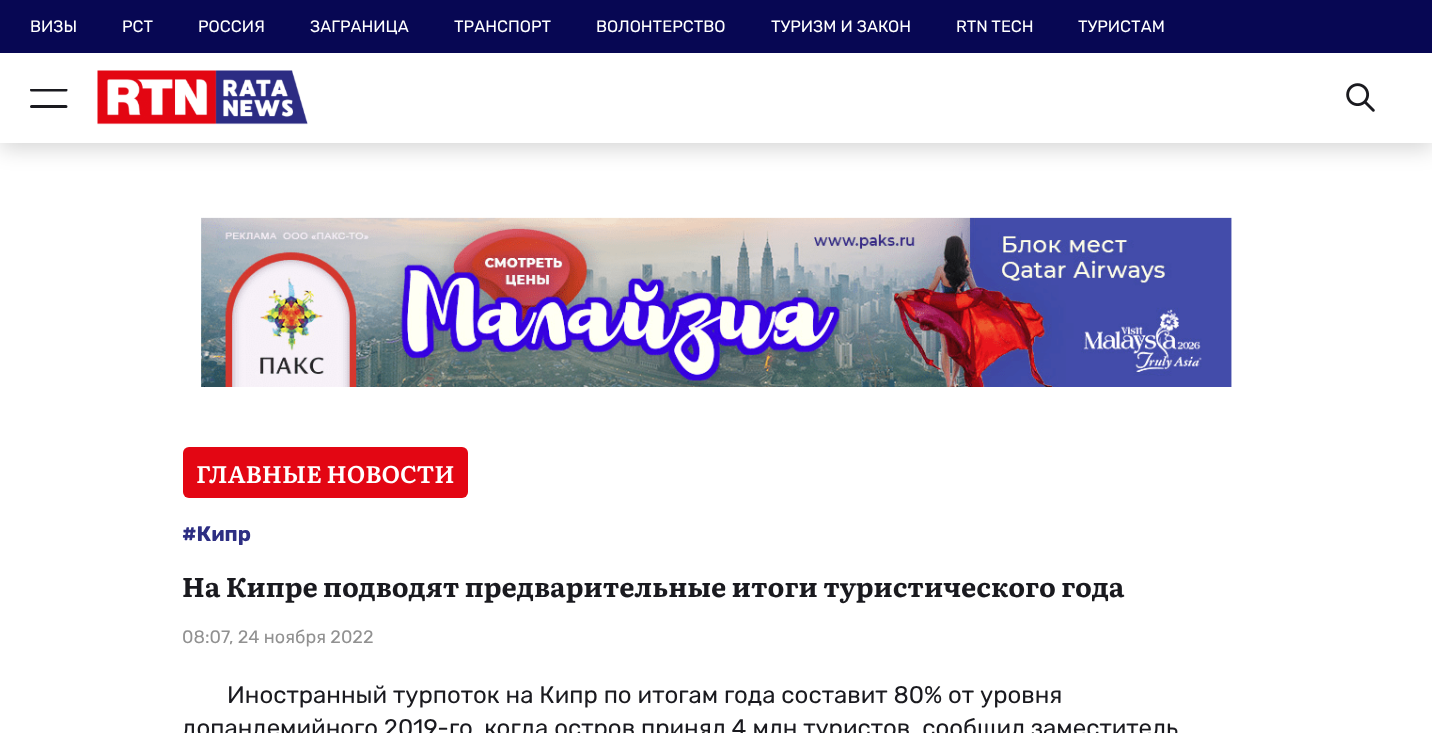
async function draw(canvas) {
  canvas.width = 1432;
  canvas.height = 733;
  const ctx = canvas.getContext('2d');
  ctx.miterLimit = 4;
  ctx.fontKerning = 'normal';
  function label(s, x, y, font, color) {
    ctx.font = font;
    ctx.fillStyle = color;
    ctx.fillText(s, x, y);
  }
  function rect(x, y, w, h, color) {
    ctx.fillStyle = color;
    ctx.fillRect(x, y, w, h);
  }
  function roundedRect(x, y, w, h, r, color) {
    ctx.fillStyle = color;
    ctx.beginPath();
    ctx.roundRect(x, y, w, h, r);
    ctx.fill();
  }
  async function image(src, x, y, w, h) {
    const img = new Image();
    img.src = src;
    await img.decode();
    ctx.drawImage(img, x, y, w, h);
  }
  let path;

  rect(0, 0, 1432, 733, '#fff');
  ctx.save();
  path = new Path2D('M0 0H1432V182H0ZM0 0H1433V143H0Z');
  ctx.clip(path, 'evenodd');
  ctx.fillStyle = '#00000029';
  ctx.filter = 'blur(10.5px)';
  ctx.beginPath();
  ctx.rect(0, 6, 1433, 143);
  ctx.fill();
  ctx.filter = 'none';
  ctx.restore();
  rect(0, 0, 1432, 53, '#070753');
  label('ВИЗЫ', 30, 32, '16.5px Rubik', '#fff');
  label('РСТ', 122, 32, '16.5px Rubik', '#fff');
  label('РОССИЯ', 198, 32, '16.5px Rubik', '#fff');
  label('ЗАГРАНИЦА', 310, 32, '16.5px Rubik', '#fff');
  label('ТРАНСПОРТ', 454, 32, '16.5px Rubik', '#fff');
  label('ВОЛОНТЕРСТВО', 596, 32, '16.5px Rubik', '#fff');
  label('ТУРИЗМ И ЗАКОН', 771, 32, '16.5px Rubik', '#fff');
  label('RTN TECH', 956, 32, '16.5px Rubik', '#fff');
  label('ТУРИСТАМ', 1078, 32, '16.5px Rubik', '#fff');
  ctx.save();
  ctx.beginPath();
  ctx.rect(30, 89, 38, 19);
  ctx.clip();
  path = new Path2D('M31.5 106.5H66M31.5 90H66');
  ctx.strokeStyle = '#1a1a1f';
  ctx.lineWidth = 3;
  ctx.lineCap = 'round';
  ctx.lineJoin = 'round';
  ctx.stroke(path);
  ctx.restore();
  await image('assets/img1.png', 97, 70, 211, 55);
  await image('assets/img2.png', 1346, 83, 29, 29);
  await image('assets/img3.png', 201, 217, 1031, 170);
  roundedRect(183, 447, 285, 51, 6, '#e30613');
  label('ГЛАВНЫЕ НОВОСТИ', 196, 483, '600 24px Literata', '#fff');
  label('#Кипр', 182, 541, 'bold 21px Rubik', '#2d2e83');
  label('На Кипре подводят предварительные итоги туристического года', 182, 597, 'bold 27px Literata', '#1a1a1f');
  label('08:07, 24 ноября 2022', 182, 643, '18px Rubik', '#919191');
  label('Иностранный турпоток на Кипр по итогам года составит 80% от уровня', 227, 703, '24px Rubik', '#1a1a1f');
  label('допандемийного 2019-го, когда остров принял 4 млн туристов, сообщил заместитель', 182, 736, '24px Rubik', '#1a1a1f');
}

draw(document.querySelector('canvas'));
